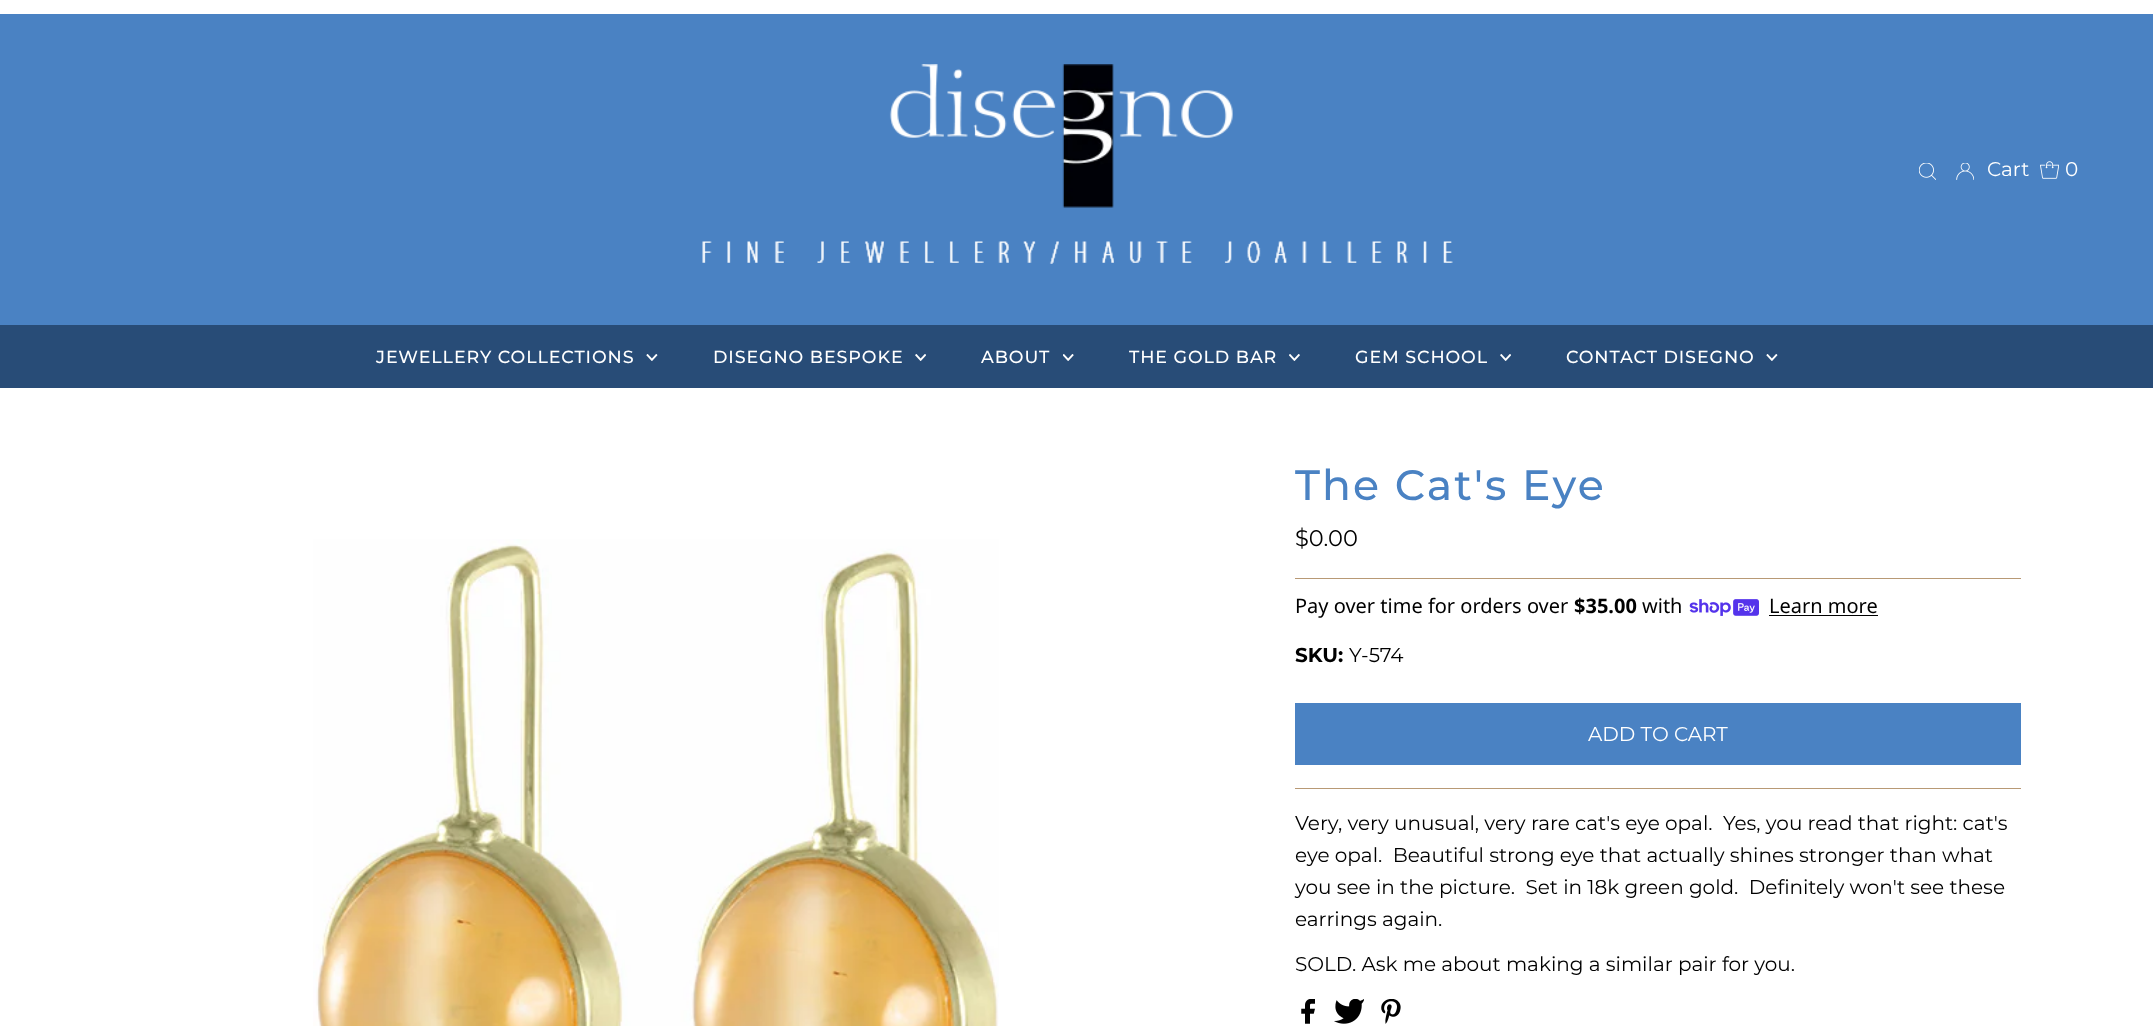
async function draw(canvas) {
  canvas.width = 2153;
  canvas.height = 1026;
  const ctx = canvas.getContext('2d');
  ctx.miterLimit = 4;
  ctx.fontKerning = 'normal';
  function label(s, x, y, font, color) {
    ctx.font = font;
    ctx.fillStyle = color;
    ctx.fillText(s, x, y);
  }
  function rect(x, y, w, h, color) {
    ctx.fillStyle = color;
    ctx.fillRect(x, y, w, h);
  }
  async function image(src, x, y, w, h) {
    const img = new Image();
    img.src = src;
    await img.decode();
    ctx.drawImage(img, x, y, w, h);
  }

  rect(0, 0, 2153, 1026, '#fff');
  rect(0, 14, 2153, 311, '#4a82c3');
  await image('assets/img1.png', 702, 64, 751, 200);
  await image('assets/img2.png', 1919, 163, 17, 17);
  await image('assets/img3.png', 1956, 163, 18, 17);
  label('Cart', 1987, 176, '20px Montserrat', '#fff');
  await image('assets/img4.png', 2040, 161, 19, 18);
  label('0', 2065, 176, '20px Montserrat', '#fff');
  rect(0, 325, 2153, 63, '#284c77');
  ctx.letterSpacing = '0.9px';
  label('JEWELLERY COLLECTIONS', 376, 363, '500 17.5px Montserrat', '#fff');
  await image('assets/img5.png', 646, 354, 12, 7);
  label('DISEGNO BESPOKE', 713, 363, '500 17.5px Montserrat', '#fff');
  await image('assets/img6.png', 915, 354, 11, 7);
  label('ABOUT', 981, 363, '500 17.5px Montserrat', '#fff');
  await image('assets/img7.png', 1063, 354, 11, 7);
  label('THE GOLD BAR', 1129, 363, '500 17.5px Montserrat', '#fff');
  await image('assets/img8.png', 1289, 354, 11, 7);
  label('GEM SCHOOL', 1355, 363, '500 17.5px Montserrat', '#fff');
  await image('assets/img6.png', 1500, 354, 11, 7);
  label('CONTACT DISEGNO', 1566, 363, '500 17.5px Montserrat', '#fff');
  await image('assets/img5.png', 1766, 354, 12, 7);
  await image('assets/img9.png', 313, 539, 686, 487);
  ctx.letterSpacing = '2.1px';
  label('The Cat\'s Eye', 1295, 500, '500 42.5px Montserrat', '#4a82c3');
  rect(1295, 578, 726, 1, '#b89975');
  ctx.letterSpacing = '0px';
  label('$0.00', 1295, 546, '22.5px Montserrat', '#000');
  label('Pay over time for orders over', 1295, 613, '20px Noto Sans', '#000');
  label('$35.00', 1574, 613, 'bold 20px Noto Sans', '#000');
  label('with', 1642, 613, '20px Noto Sans', '#000');
  await image('assets/img10.png', 1689, 599, 70, 17);
  label('Learn more', 1769, 613, '20px Noto Sans', '#000');
  rect(1769, 615, 109, 1, '#000');
  label('SKU:', 1295, 662, 'bold 20px Montserrat', '#000');
  label('Y-574', 1349, 662, '20px Montserrat', '#000');
  rect(1295, 788, 726, 1, '#b89975');
  rect(1295, 703, 726, 62, '#4a82c3');
  label('ADD TO CART', 1588, 741, '20px Montserrat', '#fff');
  label('Very, very unusual, very rare cat\'s eye opal.  Yes, you read that right: cat\'s', 1295, 830, '20px Montserrat', '#000');
  label('eye opal.  Beautiful strong eye that actually shines stronger than what', 1295, 862, '20px Montserrat', '#000');
  label('you see in the picture.  Set in 18k green gold.  Definitely won\'t see these', 1295, 894, '20px Montserrat', '#000');
  label('earrings again.', 1295, 926, '20px Montserrat', '#000');
  label('SOLD. Ask me about making a similar pair for you.', 1295, 971, '20px Montserrat', '#000');
  await image('assets/img11.png', 1301, 999, 14, 25);
  await image('assets/img12.png', 1334, 999, 30, 25);
  await image('assets/img13.png', 1381, 999, 20, 25);
}

draw(document.querySelector('canvas'));
